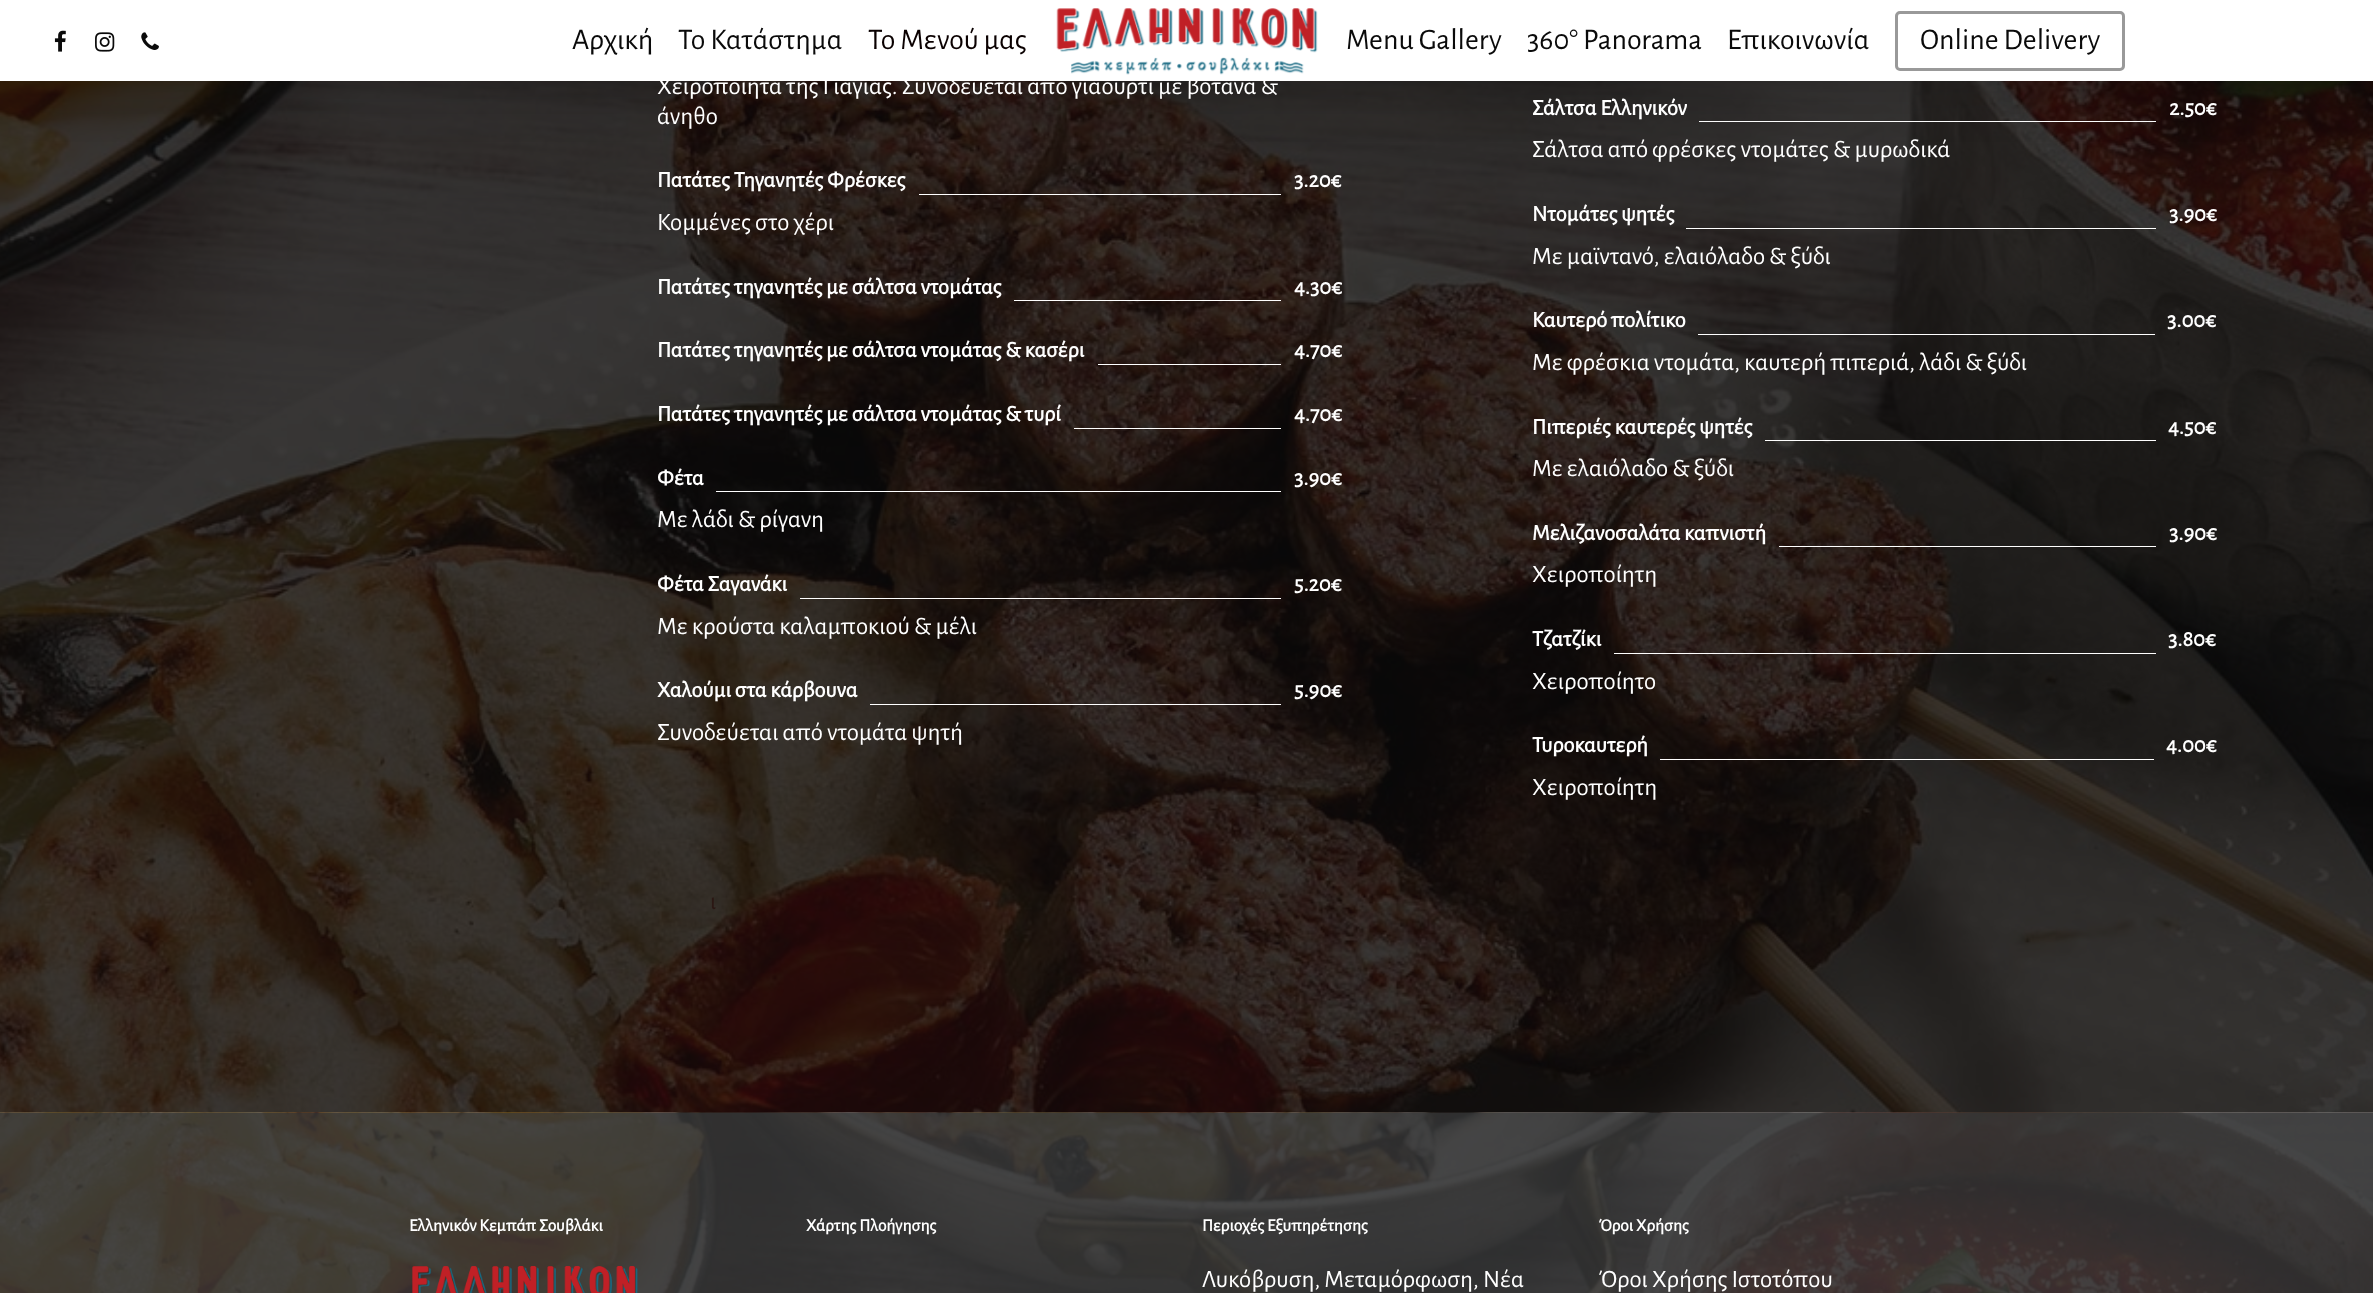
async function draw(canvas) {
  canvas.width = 2373;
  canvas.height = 1293;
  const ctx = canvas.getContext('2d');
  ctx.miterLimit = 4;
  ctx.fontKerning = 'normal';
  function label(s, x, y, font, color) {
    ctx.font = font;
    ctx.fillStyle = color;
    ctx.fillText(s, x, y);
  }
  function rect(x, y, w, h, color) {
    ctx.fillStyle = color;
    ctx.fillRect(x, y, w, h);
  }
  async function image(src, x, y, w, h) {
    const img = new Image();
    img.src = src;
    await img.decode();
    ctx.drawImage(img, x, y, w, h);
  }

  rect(0, 0, 2373, 1293, '#3b3b3b');
  await image('assets/img5.png', 0, 81, 2373, 1032);
  rect(1699, 121, 457, 1, '#fff');
  ctx.fillStyle = '#00000026';
  ctx.filter = 'blur(28px)';
  ctx.beginPath();
  ctx.rect(0, 4, 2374, 81);
  ctx.fill();
  ctx.filter = 'none';
  rect(0, 0, 2373, 81, '#fff');
  await image('assets/img1.png', 1056, 8, 262, 67);
  await image('assets/img2.png', 54, 30, 12, 22);
  await image('assets/img3.png', 95, 32, 20, 20);
  await image('assets/img4.png', 141, 32, 18, 18);
  label('Αρχική', 572, 49, '30px Alegreya Sans', '#0a0a0a');
  label('Το Κατάστημα', 678, 49, '30px Alegreya Sans', '#0a0a0a');
  label('Το Μενού μας', 868, 49, '30px Alegreya Sans', '#0a0000');
  label('Menu Gallery', 1346, 49, '30px Alegreya Sans', '#0a0a0a');
  label('360° Panorama', 1527, 49, '30px Alegreya Sans', '#0a0a0a');
  label('Επικοινωνία', 1727, 49, '30px Alegreya Sans', '#0a0a0a');
  ctx.beginPath();
  ctx.roundRect(1896.5, 12.5, 227, 57, 3.5);
  ctx.strokeStyle = '#999';
  ctx.lineWidth = 3;
  ctx.stroke();
  label('Online Delivery', 1920, 49, '30px Alegreya Sans', '#0a0a0a');
  label('Χειροποίητα της Γιαγιάς. Συνοδεύεται από γιαούρτι με βότανα &', 657, 94, '25px Alegreya Sans', '#fff');
  label('άνηθο', 657, 124, '25px Alegreya Sans', '#fff');
  label('Πατάτες Τηγανητές Φρέσκες', 657, 187, 'bold 22.5px Alegreya Sans', '#fff');
  label('3.20€', 1294, 187, 'bold 22.5px Alegreya Sans', '#fff');
  rect(919, 194, 362, 1, '#fff');
  label('Κομμένες στο χέρι', 657, 230, '25px Alegreya Sans', '#fff');
  label('Πατάτες τηγανητές με σάλτσα ντομάτας', 657, 294, 'bold 22.5px Alegreya Sans', '#fff');
  label('4.30€', 1294, 294, 'bold 22.5px Alegreya Sans', '#fff');
  rect(1014, 300, 267, 1, '#fff');
  label('Πατάτες τηγανητές με σάλτσα ντομάτας & κασέρι', 657, 357, 'bold 22.5px Alegreya Sans', '#fff');
  label('4.70€', 1294, 357, 'bold 22.5px Alegreya Sans', '#fff');
  rect(1098, 364, 183, 1, '#fff');
  label('Πατάτες τηγανητές με σάλτσα ντομάτας & τυρί', 657, 421, 'bold 22.5px Alegreya Sans', '#fff');
  label('4.70€', 1294, 421, 'bold 22.5px Alegreya Sans', '#fff');
  rect(1074, 428, 207, 1, '#fff');
  label('Φέτα', 657, 485, 'bold 22.5px Alegreya Sans', '#fff');
  label('3.90€', 1294, 485, 'bold 22.5px Alegreya Sans', '#fff');
  rect(716, 491, 565, 1, '#fff');
  label('Με λάδι & ρίγανη', 657, 527, '25px Alegreya Sans', '#fff');
  label('Φέτα Σαγανάκι', 657, 591, 'bold 22.5px Alegreya Sans', '#fff');
  label('5.20€', 1294, 591, 'bold 22.5px Alegreya Sans', '#fff');
  rect(800, 598, 481, 1, '#fff');
  label('Με κρούστα καλαμποκιού & μέλι', 657, 634, '25px Alegreya Sans', '#fff');
  label('Χαλούμι στα κάρβουνα', 657, 697, 'bold 22.5px Alegreya Sans', '#fff');
  label('5.90€', 1294, 697, 'bold 22.5px Alegreya Sans', '#fff');
  rect(870, 704, 411, 1, '#fff');
  label('Συνοδεύεται από ντομάτα ψητή', 657, 740, '25px Alegreya Sans', '#fff');
  label('ι', 710, 909, '25px Alegreya Sans', '#2b1713');
  label('Σάλτσα Ελληνικόν', 1532, 115, 'bold 22.5px Alegreya Sans', '#fff');
  label('2.50€', 2169, 115, 'bold 22.5px Alegreya Sans', '#fff');
  label('Σάλτσα από φρέσκες ντομάτες & μυρωδικά', 1532, 157, '25px Alegreya Sans', '#fff');
  label('Ντομάτες ψητές', 1532, 221, 'bold 22.5px Alegreya Sans', '#fff');
  label('3.90€', 2169, 221, 'bold 22.5px Alegreya Sans', '#fff');
  rect(1686, 228, 470, 1, '#fff');
  label('Με μαϊντανό, ελαιόλαδο & ξύδι', 1532, 264, '25px Alegreya Sans', '#fff');
  label('Καυτερό πολίτικο', 1532, 327, 'bold 22.5px Alegreya Sans', '#fff');
  label('3.00€', 2167, 327, 'bold 22.5px Alegreya Sans', '#fff');
  rect(1698, 334, 457, 1, '#fff');
  label('Με φρέσκια ντομάτα, καυτερή πιπεριά, λάδι & ξύδι', 1532, 370, '25px Alegreya Sans', '#fff');
  label('Πιπεριές καυτερές ψητές', 1532, 434, 'bold 22.5px Alegreya Sans', '#fff');
  label('4.50€', 2168, 434, 'bold 22.5px Alegreya Sans', '#fff');
  rect(1765, 440, 391, 1, '#fff');
  label('Με ελαιόλαδο & ξύδι', 1532, 476, '25px Alegreya Sans', '#fff');
  label('Μελιζανοσαλάτα καπνιστή', 1532, 540, 'bold 22.5px Alegreya Sans', '#fff');
  label('3.90€', 2169, 540, 'bold 22.5px Alegreya Sans', '#fff');
  rect(1779, 546, 377, 1, '#fff');
  label('Χειροποίητη', 1532, 582, '25px Alegreya Sans', '#fff');
  label('Τζατζίκι', 1532, 646, 'bold 22.5px Alegreya Sans', '#fff');
  label('3.80€', 2168, 646, 'bold 22.5px Alegreya Sans', '#fff');
  rect(1614, 653, 542, 1, '#fff');
  label('Χειροποίητο', 1532, 689, '25px Alegreya Sans', '#fff');
  label('Τυροκαυτερή', 1532, 752, 'bold 22.5px Alegreya Sans', '#fff');
  label('4.00€', 2166, 752, 'bold 22.5px Alegreya Sans', '#fff');
  rect(1660, 759, 494, 1, '#fff');
  label('Χειροποίητη', 1532, 795, '25px Alegreya Sans', '#fff');
  await image('assets/img6.png', 0, 1112, 2373, 181);
  label('Ελληνικόν Κεμπάπ Σουβλάκι', 409, 1231, 'bold 17.5px Alegreya Sans', '#fff');
  await image('assets/img7.png', 412, 1266, 226, 27);
  label('Χάρτης Πλοήγησης', 806, 1231, 'bold 17.5px Alegreya Sans', '#fff');
  label('Περιοχές Εξυπηρέτησης', 1202, 1231, 'bold 17.5px Alegreya Sans', '#fff');
  label('Λυκόβρυση, Μεταμόρφωση, Νέα', 1202, 1287, '25px Alegreya Sans', '#fff');
  label('Όροι Χρήσης', 1599, 1231, 'bold 17.5px Alegreya Sans', '#fff');
  label('Όροι Χρήσης Ιστοτόπου', 1599, 1287, '25px Alegreya Sans', '#fff');
}

draw(document.querySelector('canvas'));
